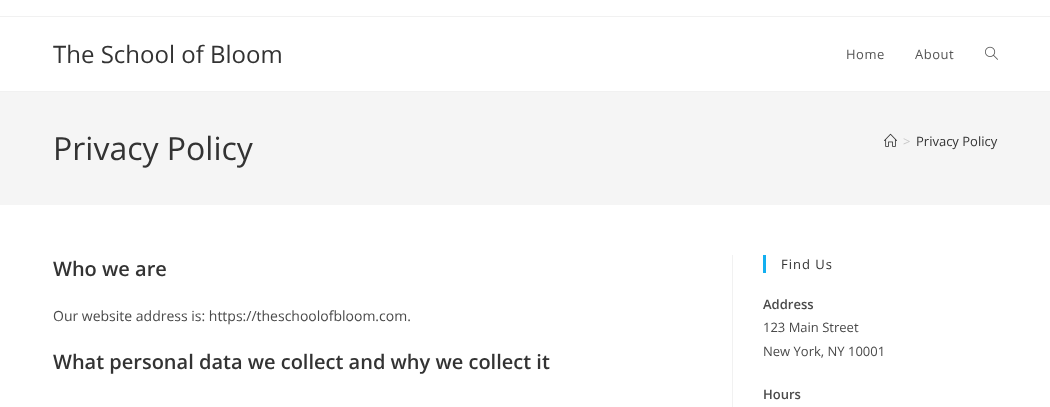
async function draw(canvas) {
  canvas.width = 1050;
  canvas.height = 407;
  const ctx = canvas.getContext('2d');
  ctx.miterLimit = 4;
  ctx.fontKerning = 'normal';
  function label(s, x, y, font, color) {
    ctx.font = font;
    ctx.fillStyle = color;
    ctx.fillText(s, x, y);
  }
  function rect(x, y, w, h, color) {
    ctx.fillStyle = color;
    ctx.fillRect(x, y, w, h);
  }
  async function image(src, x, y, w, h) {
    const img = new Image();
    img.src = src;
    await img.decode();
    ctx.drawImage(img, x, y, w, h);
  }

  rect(0, 0, 1050, 407, '#fff');
  rect(0, 16, 1050, 1, '#f1f1f1');
  rect(0, 91, 1050, 1, '#f1f1f1');
  label('The School of Bloom', 53, 63, '24px Open Sans', '#333');
  ctx.letterSpacing = '0.5px';
  label('Home', 846, 59, '13px Open Sans', '#555');
  label('About', 915, 59, '13px Open Sans', '#555');
  await image('assets/img1.png', 985, 46, 13, 14);
  rect(0, 92, 1050, 113, '#f5f5f5');
  ctx.letterSpacing = '0px';
  label('Privacy Policy', 53, 160, '32px Open Sans', '#333');
  await image('assets/img2.png', 884, 133, 13, 14);
  label('>', 903, 146, '13px Open Sans', '#c6c6c6');
  label('Privacy Policy', 916, 146, '13px Open Sans', '#333');
  rect(732, 255, 1, 152, '#f1f1f1');
  label('Who we are', 53, 276, '600 20px Open Sans', '#333');
  label('Our website address is: https://theschoolofbloom.com.', 53, 321, '14px Open Sans', '#4a4a4a');
  label('What personal data we collect and why we collect it', 53, 369, '600 20px Open Sans', '#333');
  rect(763, 255, 3, 18, '#13aff0');
  ctx.letterSpacing = '1px';
  label('Find Us', 781, 269, '13px Open Sans', '#333');
  ctx.letterSpacing = '0px';
  label('Address', 763, 309, '600 13px Open Sans', '#4a4a4a');
  label('123 Main Street', 763, 332, '13px Open Sans', '#4a4a4a');
  label('New York, NY 10001', 763, 356, '13px Open Sans', '#4a4a4a');
  label('Hours', 763, 399, '600 13px Open Sans', '#4a4a4a');
}

draw(document.querySelector('canvas'));
